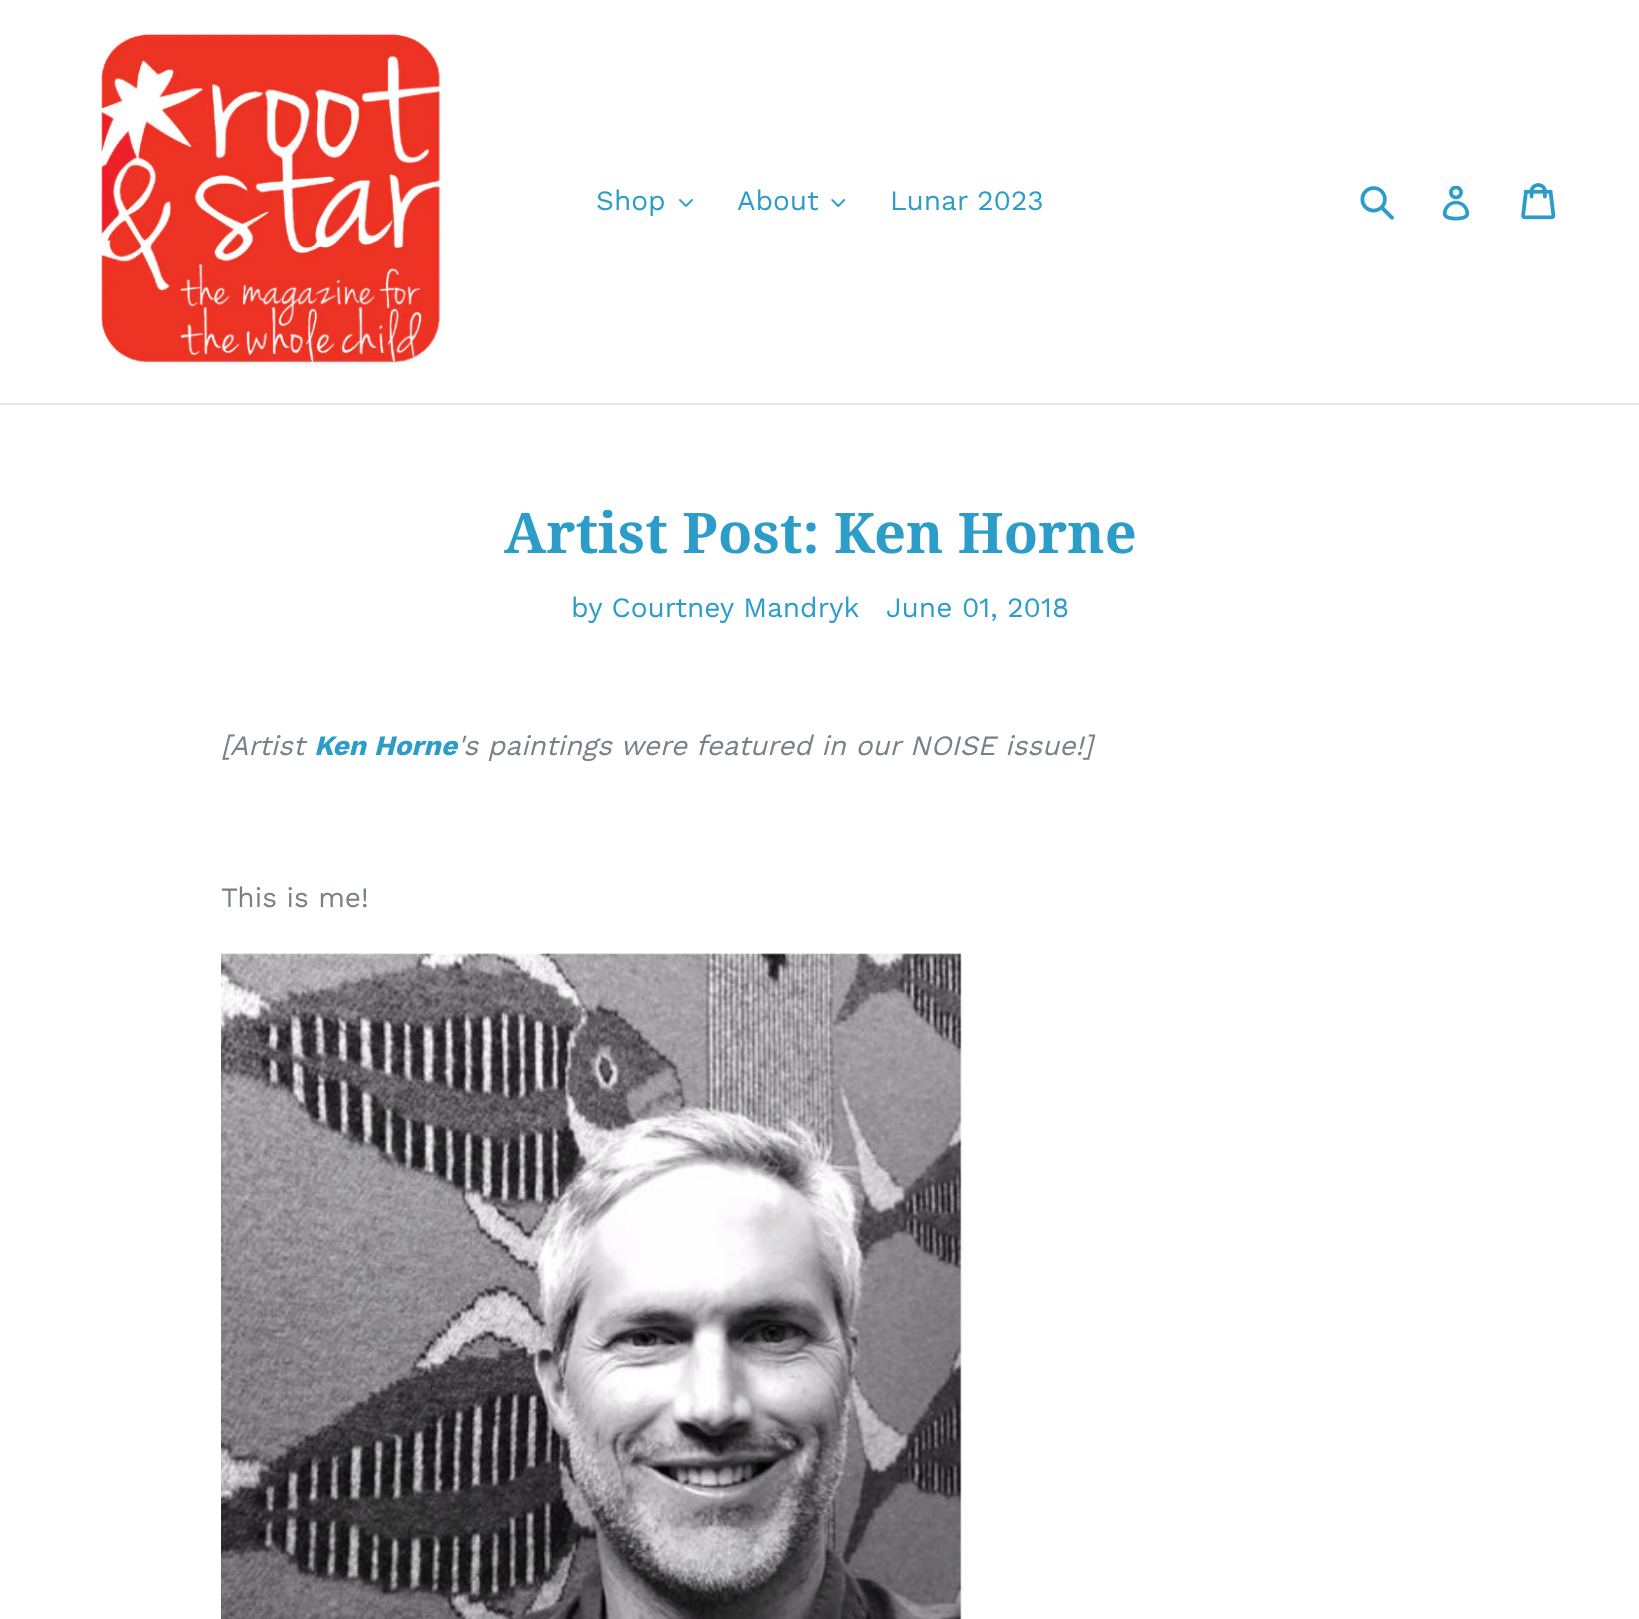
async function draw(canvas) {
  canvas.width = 1639;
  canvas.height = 1619;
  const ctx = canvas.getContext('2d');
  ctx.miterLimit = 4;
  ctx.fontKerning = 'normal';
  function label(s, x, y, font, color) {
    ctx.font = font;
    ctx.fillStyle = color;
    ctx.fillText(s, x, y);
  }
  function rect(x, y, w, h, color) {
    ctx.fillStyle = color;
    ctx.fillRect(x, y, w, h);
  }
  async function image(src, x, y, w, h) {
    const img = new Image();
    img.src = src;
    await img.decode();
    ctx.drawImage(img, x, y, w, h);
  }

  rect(0, 0, 1639, 1619, '#fff');
  rect(0, 403, 1639, 2, '#e8e9eb');
  await image('assets/img1.png', 96, 32, 350, 336);
  label('Shop', 596, 210, '28px Work Sans', '#2c9dc9');
  await image('assets/img2.png', 679, 199, 14, 8);
  label('About', 737, 210, '28px Work Sans', '#2c9dc9');
  await image('assets/img3.png', 831, 199, 14, 8);
  label('Lunar 2023', 890, 210, '28px Work Sans', '#2c9dc9');
  await image('assets/img4.png', 1360, 186, 34, 34);
  await image('assets/img5.png', 1442, 186, 28, 35);
  await image('assets/img6.png', 1521, 183, 35, 37);
  label('Artist Post: Ken Horne', 504, 553, 'bold 56px Droid Serif', '#2c9dc9');
  label('by Courtney Mandryk', 571, 617, '28px Work Sans', '#2c9dc9');
  label('June 01, 2018', 886, 617, '28px Work Sans', '#2c9dc9');
  label('[Artist', 221, 755, 'italic 28px Work Sans', '#788188');
  label('Ken Horne', 314, 755, 'italic bold 28px Work Sans', '#2c9dc9');
  label('\'s paintings were featured in our NOISE issue!]', 457, 755, 'italic 28px Work Sans', '#788188');
  label('This is me!', 221, 907, '28px Work Sans', '#788188');
  await image('assets/img7.png', 221, 953, 741, 666);
}

draw(document.querySelector('canvas'));
